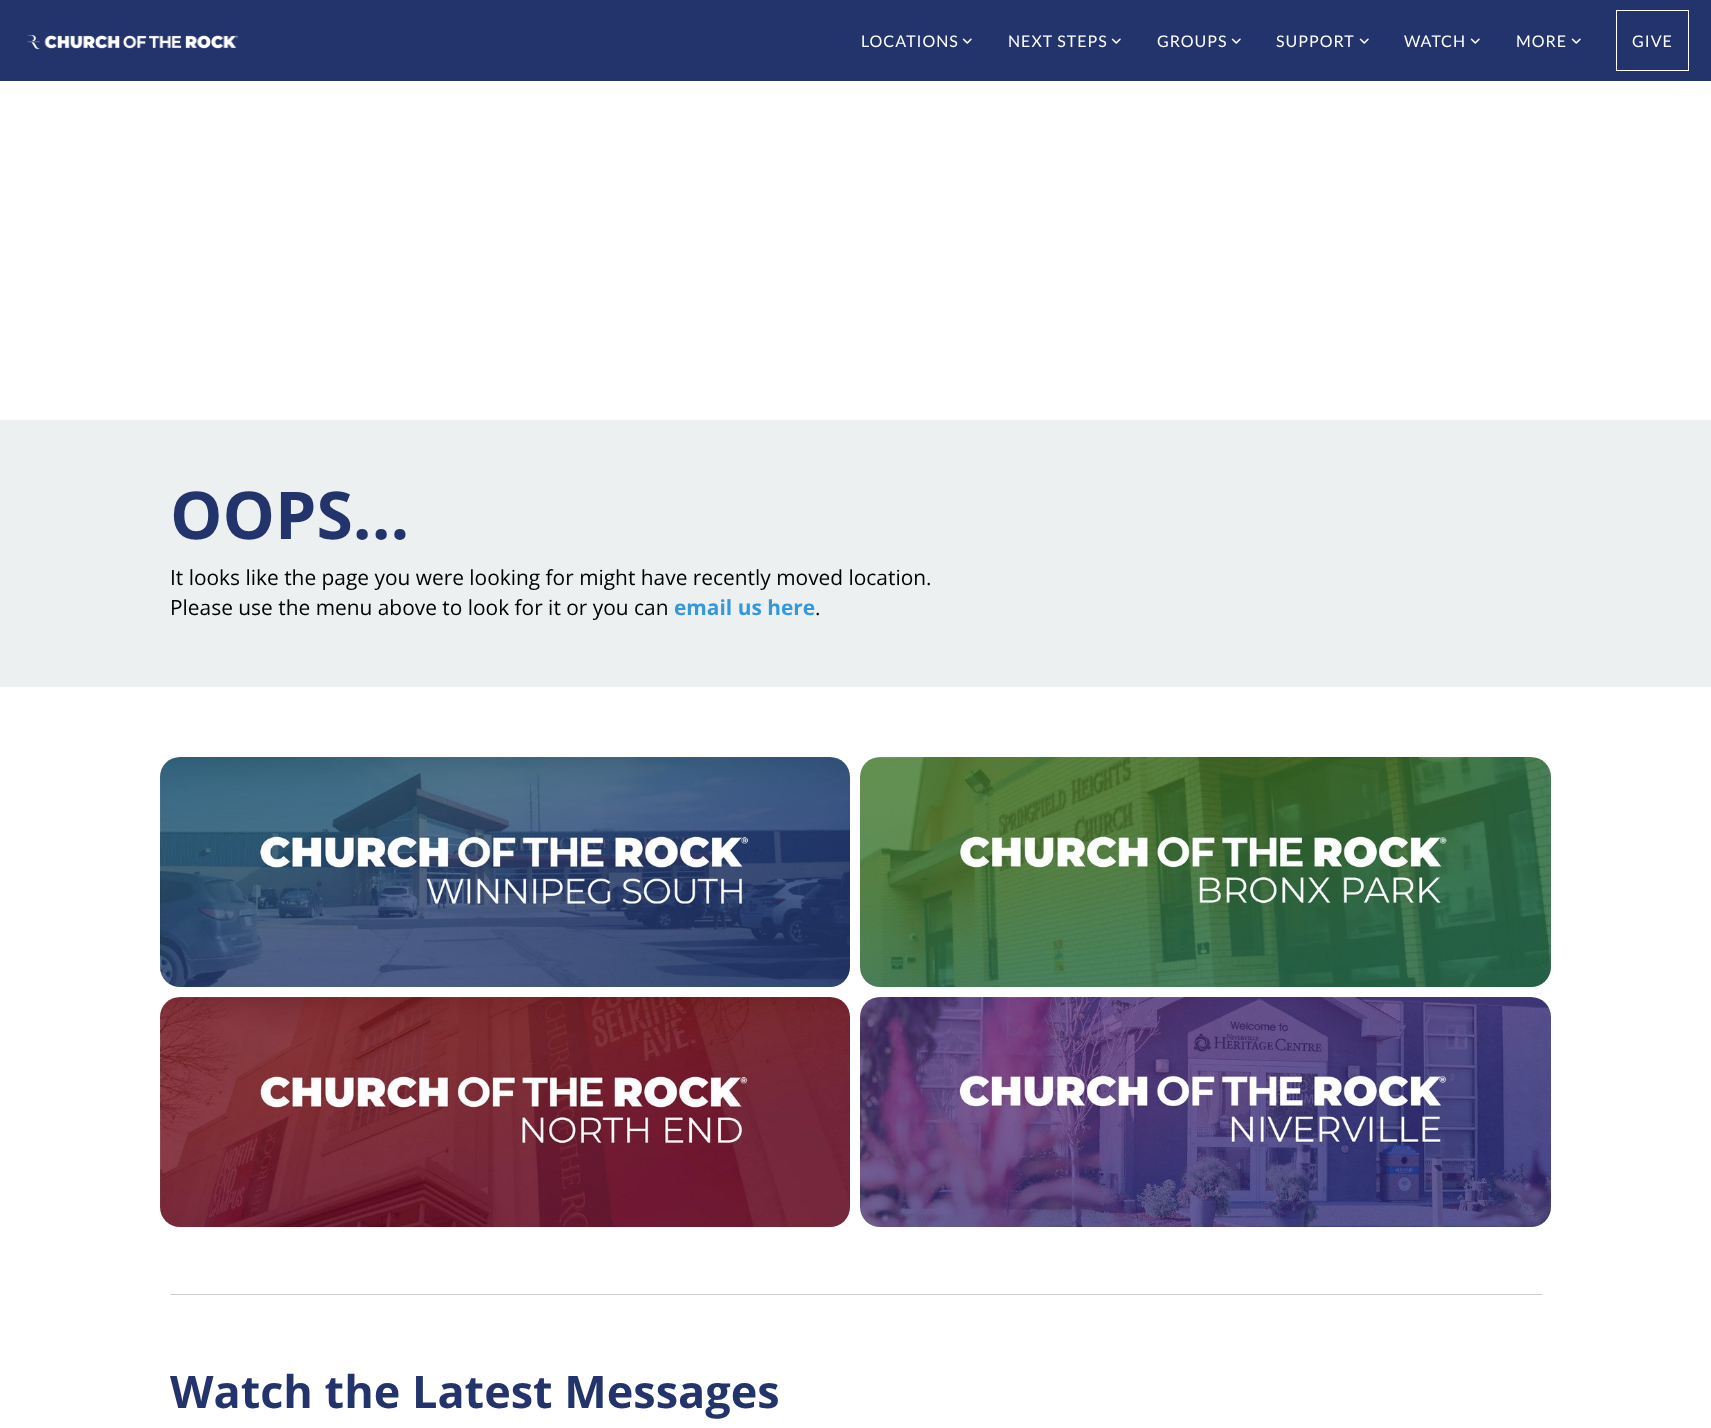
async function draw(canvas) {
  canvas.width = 1711;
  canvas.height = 1428;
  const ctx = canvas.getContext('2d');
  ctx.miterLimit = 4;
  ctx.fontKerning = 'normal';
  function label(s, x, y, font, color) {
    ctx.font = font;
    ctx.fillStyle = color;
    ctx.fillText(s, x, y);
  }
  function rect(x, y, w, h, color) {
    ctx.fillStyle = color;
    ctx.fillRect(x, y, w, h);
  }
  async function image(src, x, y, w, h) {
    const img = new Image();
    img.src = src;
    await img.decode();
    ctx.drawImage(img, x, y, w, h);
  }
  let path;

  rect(0, 0, 1711, 1428, '#fff');
  rect(0, 0, 1711, 81, '#23336b');
  await image('assets/img1.png', 27, 34, 212, 16);
  ctx.letterSpacing = '1px';
  label('LOCATIONS', 861, 47, '16px Lato', '#fff');
  await image('assets/img2.png', 962, 38, 10, 6);
  label('NEXT STEPS', 1008, 47, '16px Lato', '#fff');
  await image('assets/img2.png', 1111, 38, 10, 6);
  label('GROUPS', 1157, 47, '16px Lato', '#fff');
  await image('assets/img2.png', 1231, 38, 10, 6);
  label('SUPPORT', 1276, 47, '16px Lato', '#fff');
  await image('assets/img2.png', 1359, 38, 10, 6);
  label('WATCH', 1404, 47, '16px Lato', '#fff');
  await image('assets/img2.png', 1470, 38, 10, 6);
  label('MORE', 1516, 47, '16px Lato', '#fff');
  await image('assets/img2.png', 1571, 38, 10, 6);
  ctx.strokeStyle = '#fff';
  ctx.strokeRect(1616.5, 10.5, 72, 60);
  label('GIVE', 1632, 47, '16px Lato', '#fff');
  rect(0, 420, 1711, 267, '#ecf0f1');
  ctx.letterSpacing = '0px';
  label('OOPS...', 170, 539, 'bold 66px Open Sans', '#23336b');
  label('It looks like the page you were looking for might have recently moved location.', 170, 585, '20.9px Open Sans', '#000');
  label('Please use the menu above to look for it or you can', 170, 615, '20.9px Open Sans', '#000');
  label('email us here', 674, 615, 'bold 20.9px Open Sans', '#3498db');
  label('.', 815, 615, '20.9px Open Sans', '#000');
  await image('assets/img3.png', 160, 757, 690, 230);
  await image('assets/img4.png', 860, 757, 691, 230);
  await image('assets/img5.png', 160, 997, 690, 230);
  await image('assets/img6.png', 860, 997, 691, 230);
  ctx.fillStyle = '#ccc';
  path = new Path2D('M1543 1295H170L171 1294H1542Z');
  ctx.fill(path);
  label('Watch the Latest Messages', 170, 1408, 'bold 45px Open Sans', '#23336b');
}

draw(document.querySelector('canvas'));
